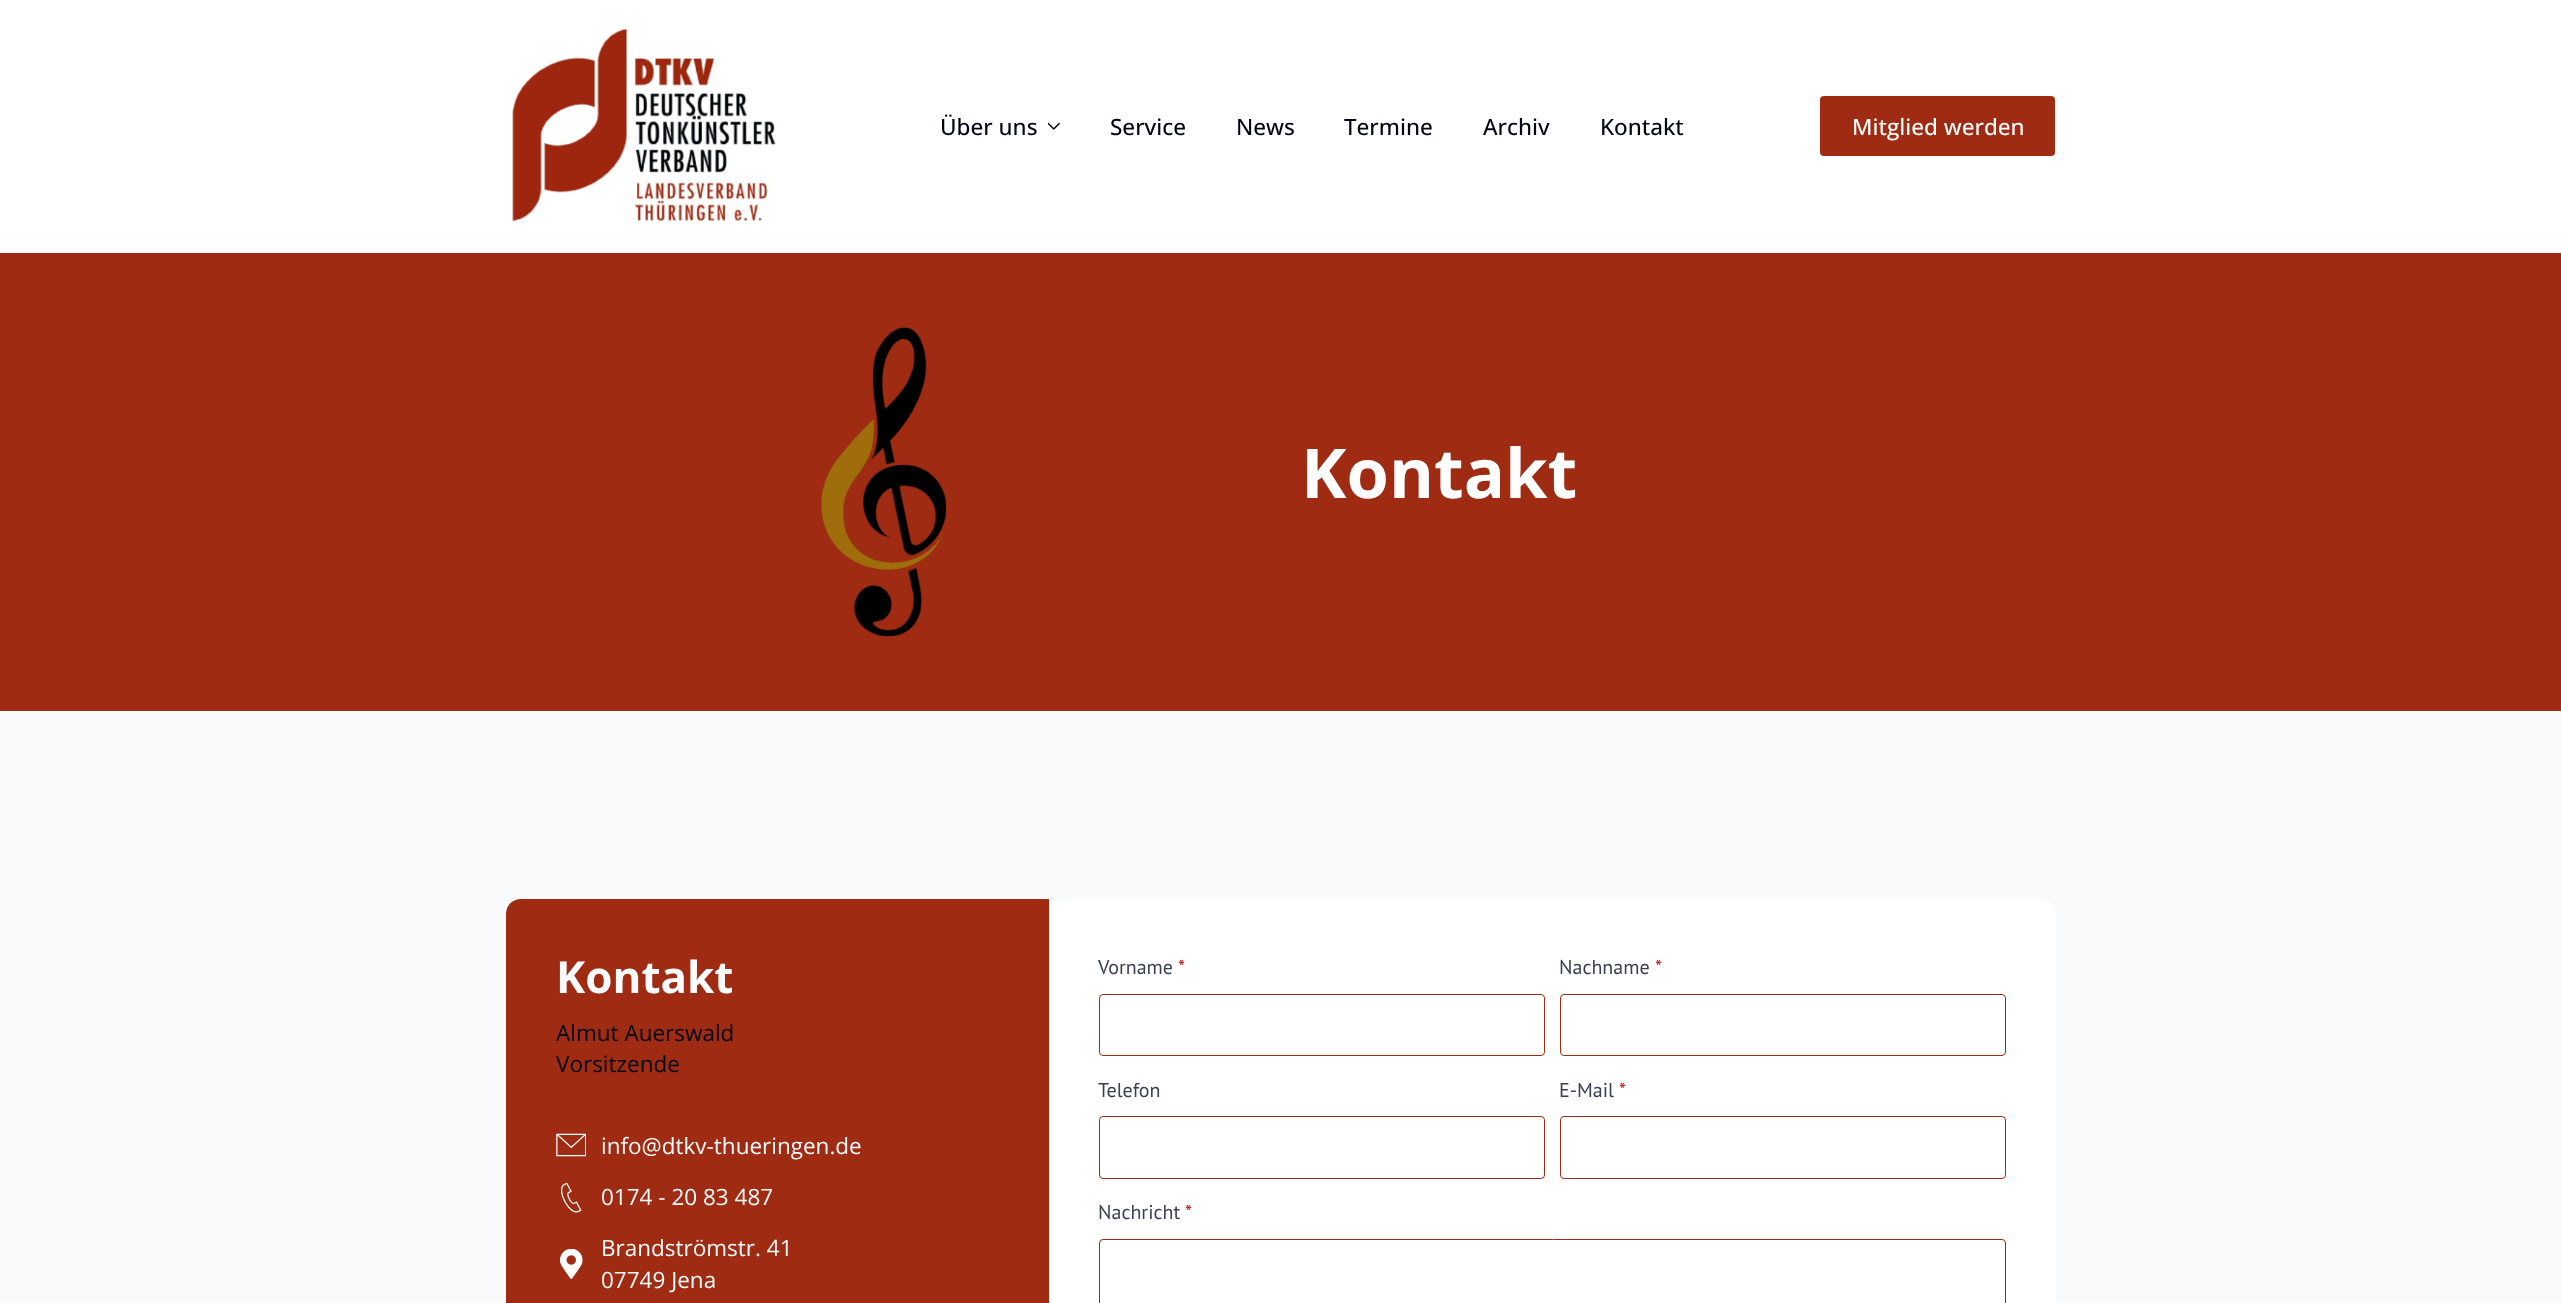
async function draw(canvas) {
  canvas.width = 2561;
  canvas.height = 1303;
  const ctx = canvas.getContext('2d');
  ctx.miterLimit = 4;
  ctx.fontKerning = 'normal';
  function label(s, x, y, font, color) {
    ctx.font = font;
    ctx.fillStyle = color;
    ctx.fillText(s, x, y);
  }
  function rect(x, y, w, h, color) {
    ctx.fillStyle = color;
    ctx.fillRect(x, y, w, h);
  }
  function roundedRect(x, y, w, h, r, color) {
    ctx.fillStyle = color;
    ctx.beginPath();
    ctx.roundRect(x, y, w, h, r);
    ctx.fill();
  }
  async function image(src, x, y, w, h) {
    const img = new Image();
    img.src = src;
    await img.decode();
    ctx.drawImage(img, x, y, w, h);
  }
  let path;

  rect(0, 0, 2561, 1303, '#f9fafb');
  rect(0, 0, 2561, 253, '#fff');
  await image('assets/img1.png', 511, 28, 265, 194);
  label('Über uns', 940, 135, '500 22.5px Open Sans', '#030314');
  await image('assets/img2.png', 1048, 122, 12, 8);
  label('Service', 1110, 135, '500 22.5px Open Sans', '#030314');
  label('News', 1236, 135, '500 22.5px Open Sans', '#030314');
  label('Termine', 1344, 135, '500 22.5px Open Sans', '#030314');
  label('Archiv', 1483, 135, '500 22.5px Open Sans', '#030314');
  label('Kontakt', 1600, 135, '500 22.5px Open Sans', '#030314');
  roundedRect(1820, 96, 235, 60, 4, '#9f2b13');
  label('Mitglied werden', 1852, 135, '500 22.5px Open Sans', '#fff');
  rect(0, 253, 2561, 458, '#9f2b13');
  await image('assets/img3.png', 821, 327, 126, 310);
  label('Kontakt', 1301, 498, 'bold 68.5px Open Sans', '#fff');
  ctx.fillStyle = '#9f2b13';
  path = new Path2D('M521 899H1049V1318H521C512.5 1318 506 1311.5 506 1303V914C506 905.5 512.5 899 521 899Z');
  ctx.fill(path);
  label('Kontakt', 556, 993, 'bold 44px Open Sans', '#f9fafb');
  label('Almut Auerswald', 556, 1041, '22.5px Open Sans', '#030314');
  label('Vorsitzende', 556, 1072, '22.5px Open Sans', '#030314');
  await image('assets/img4.png', 556, 1133, 30, 24);
  label('info@dtkv-thueringen.de', 601, 1154, '22.5px Open Sans', '#f9fafb');
  await image('assets/img5.png', 561, 1183, 21, 30);
  label('0174 - 20 83 487', 601, 1205, '22.5px Open Sans', '#f9fafb');
  await image('assets/img6.png', 560, 1249, 23, 30);
  label('Brandströmstr. 41', 601, 1256, '22.5px Open Sans', '#f9fafb');
  label('07749 Jena', 601, 1288, '22.5px Open Sans', '#f9fafb');
  ctx.fillStyle = '#fff';
  path = new Path2D('M1049 899H2041C2049.5 899 2056 905.5 2056 914V1303C2056 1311.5 2049.5 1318 2041 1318H1049Z');
  ctx.fill(path);
  label('Vorname', 1098, 974, '20px PT Sans', '#374151');
  label('*', 1178, 974, '20px PT Sans', '#b91c1c');
  ctx.beginPath();
  ctx.roundRect(1099.5, 994.5, 445, 61, 3.5);
  ctx.strokeStyle = '#9f2b13';
  ctx.stroke();
  label('Nachname', 1559, 974, '20px PT Sans', '#374151');
  label('*', 1655, 974, '20px PT Sans', '#b91c1c');
  ctx.beginPath();
  ctx.roundRect(1560.5, 994.5, 445, 61, 3.5);
  ctx.stroke();
  label('Telefon', 1098, 1097, '20px PT Sans', '#374151');
  ctx.beginPath();
  ctx.roundRect(1099.5, 1116.5, 445, 62, 3.5);
  ctx.stroke();
  label('E-Mail', 1559, 1097, '20px PT Sans', '#374151');
  label('*', 1619, 1097, '20px PT Sans', '#b91c1c');
  ctx.beginPath();
  ctx.roundRect(1560.5, 1116.5, 445, 62, 3.5);
  ctx.stroke();
  label('Nachricht', 1098, 1219, '20px PT Sans', '#374151');
  label('*', 1185, 1219, '20px PT Sans', '#b91c1c');
  ctx.beginPath();
  ctx.roundRect(1099.5, 1239.5, 906, 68, 3.5);
  ctx.stroke();
}

draw(document.querySelector('canvas'));
